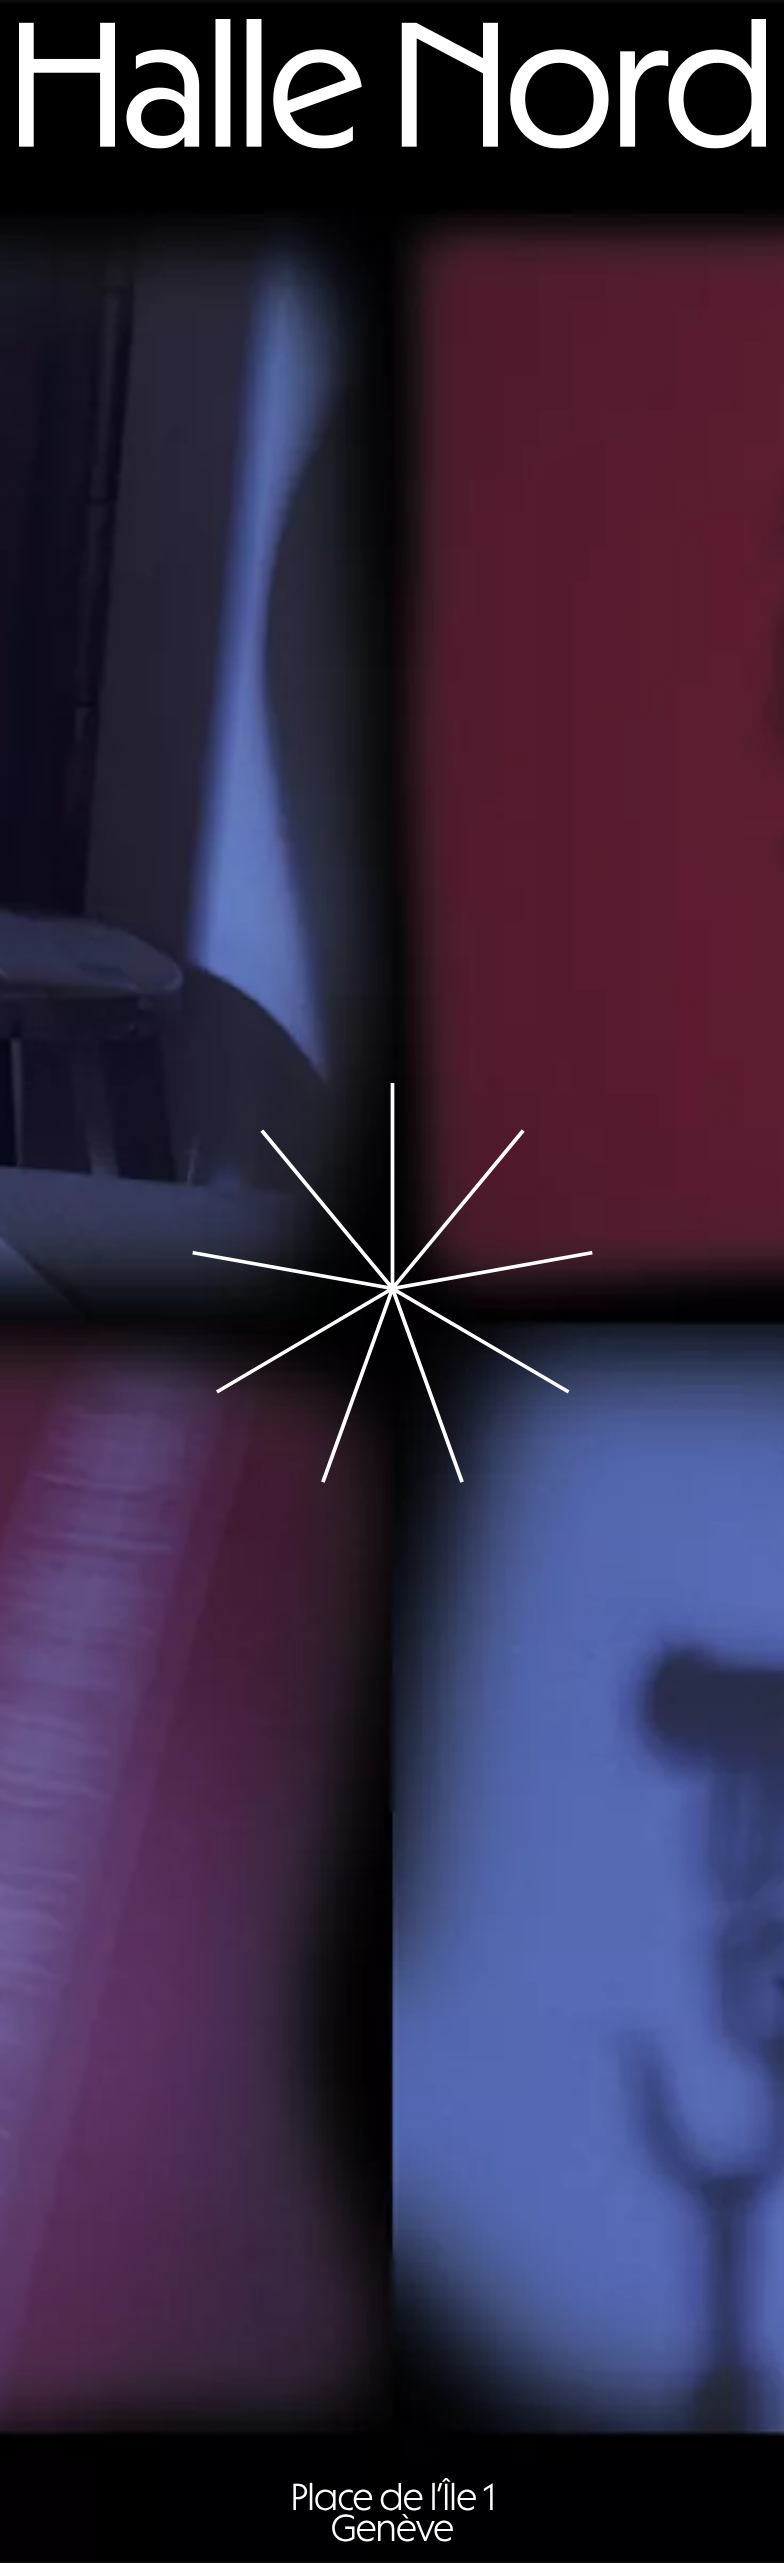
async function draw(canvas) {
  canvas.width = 784;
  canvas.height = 2563;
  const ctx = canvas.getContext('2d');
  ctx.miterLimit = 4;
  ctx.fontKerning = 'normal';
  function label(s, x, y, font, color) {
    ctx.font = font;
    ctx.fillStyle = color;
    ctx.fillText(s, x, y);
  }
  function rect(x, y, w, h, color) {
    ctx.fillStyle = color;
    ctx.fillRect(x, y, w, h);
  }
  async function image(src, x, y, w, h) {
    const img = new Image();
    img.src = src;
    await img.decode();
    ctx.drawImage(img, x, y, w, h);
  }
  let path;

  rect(0, 0, 784, 2563, '#fff');
  await image('assets/img2.png', 0, 0, 784, 2563);
  await image('assets/img1.png', 19, 19, 747, 130);
  ctx.save();
  ctx.beginPath();
  ctx.rect(174, 1083, 439, 401);
  ctx.clip();
  path = new Path2D('M392.5 1288.5L522 1132M392.5 1288.5L590.5 1253M392.5 1288.5L567 1391M392.5 1288.5L461.5 1480.5M392.5 1288.5L323.5 1480.5M392.5 1288.5L218.5 1391M392.5 1288.5L194.5 1253M392.5 1288.5L263 1132M392.5 1288.5V1084.5');
  ctx.strokeStyle = '#fff';
  ctx.lineWidth = 3.7;
  ctx.lineCap = 'square';
  ctx.stroke(path);
  ctx.restore();
  label('Place de l’Île 1', 291, 2510, '200 37.5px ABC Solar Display', '#fff');
  label('Genève', 331, 2541, '200 37.5px ABC Solar Display', '#fff');
}

draw(document.querySelector('canvas'));
